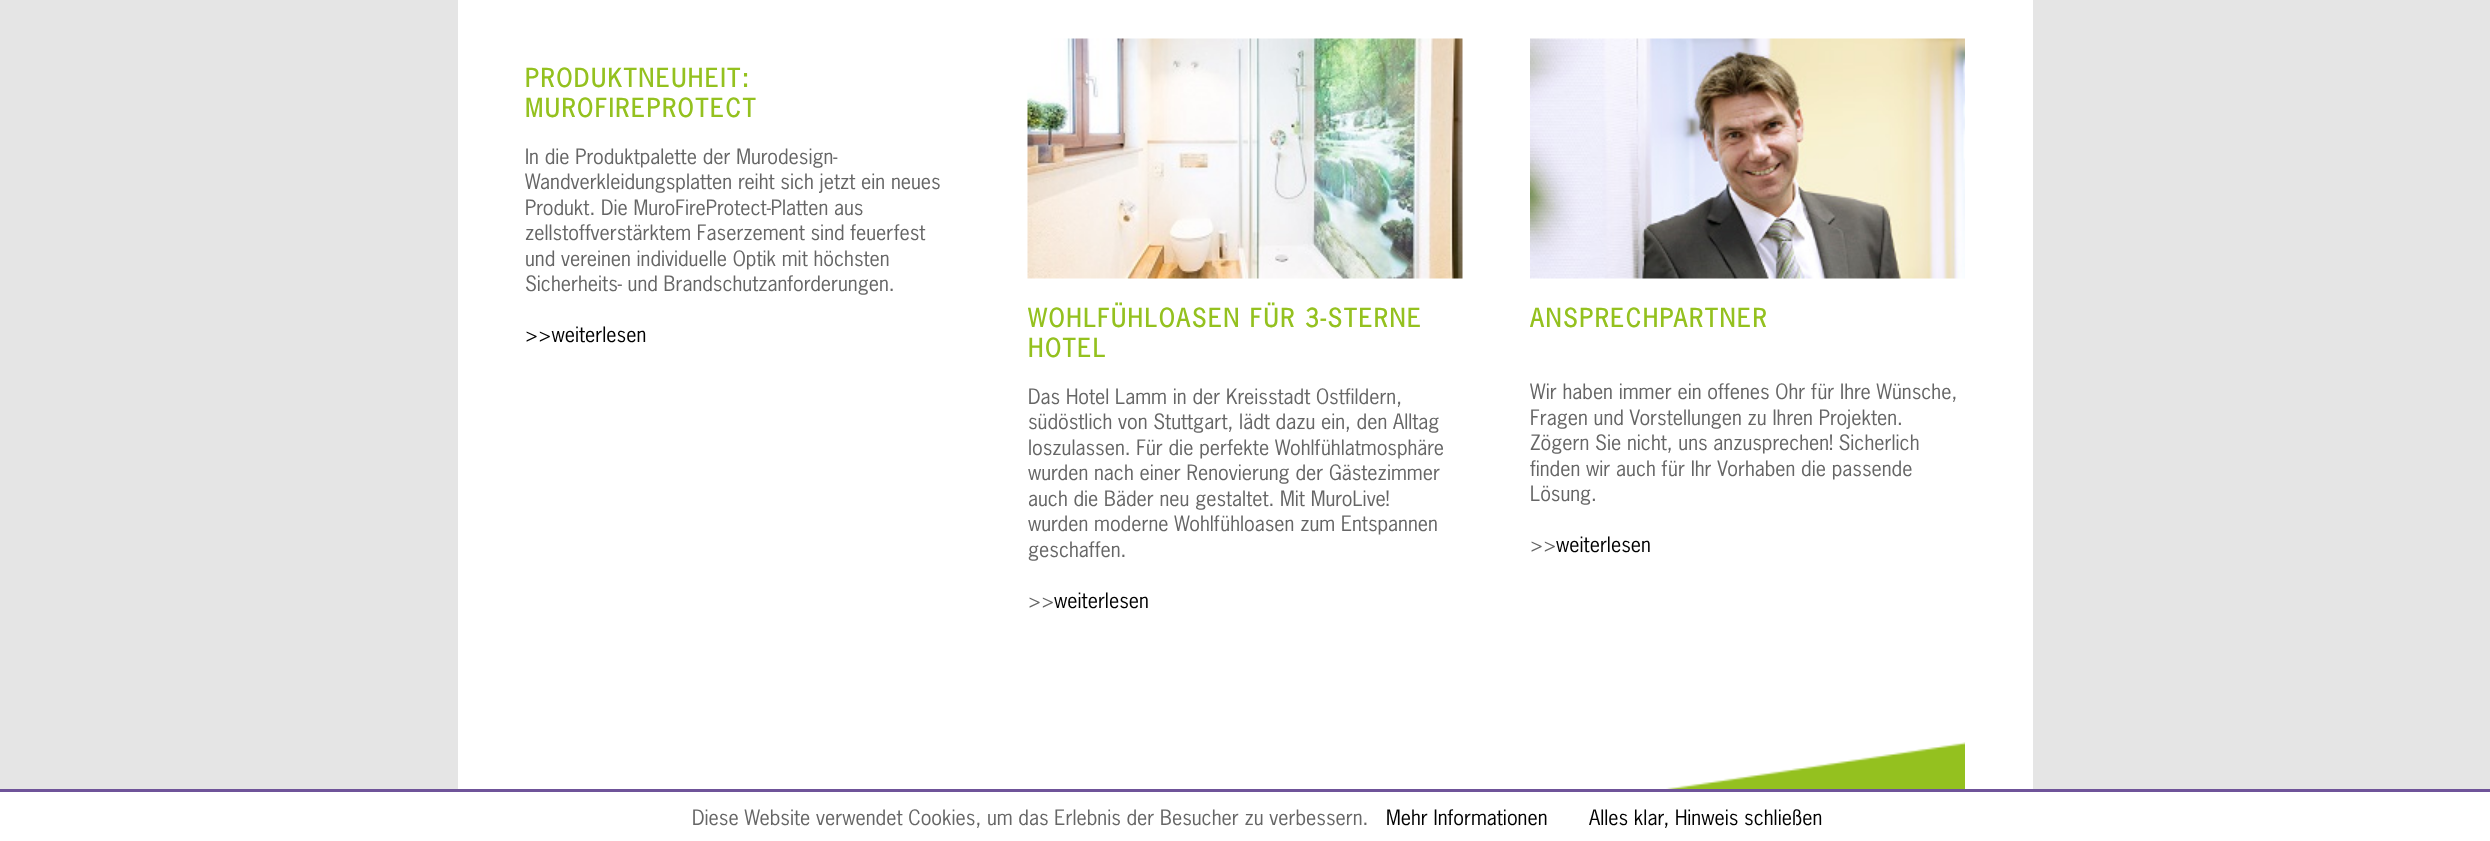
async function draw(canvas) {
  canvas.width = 2490;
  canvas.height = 841;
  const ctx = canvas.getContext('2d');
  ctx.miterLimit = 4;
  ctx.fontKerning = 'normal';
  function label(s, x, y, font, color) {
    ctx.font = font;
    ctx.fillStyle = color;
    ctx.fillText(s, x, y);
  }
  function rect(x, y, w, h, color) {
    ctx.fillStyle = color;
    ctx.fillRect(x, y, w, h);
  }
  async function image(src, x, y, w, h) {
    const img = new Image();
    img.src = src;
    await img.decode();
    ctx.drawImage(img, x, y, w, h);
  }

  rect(0, 0, 2490, 841, '#e5e5e5');
  rect(458, 0, 1575, 789, '#fff');
  ctx.letterSpacing = '2px';
  label('PRODUKTNEUHEIT:', 525, 87, 'bold 24px "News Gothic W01"', '#94c11f');
  label('MUROFIREPROTECT', 525, 117, 'bold 24px "News Gothic W01"', '#94c11f');
  ctx.letterSpacing = '0px';
  label('In die Produktpalette der Murodesign-', 525, 164, '20px "News Gothic W01"', '#666');
  label('Wandverkleidungsplatten reiht sich jetzt ein neues', 525, 189, '20px "News Gothic W01"', '#666');
  label('Produkt. Die MuroFireProtect-Platten aus', 525, 215, '20px "News Gothic W01"', '#666');
  label('zellstoffverstärktem Faserzement sind feuerfest', 525, 240, '20px "News Gothic W01"', '#666');
  label('und vereinen individuelle Optik mit höchsten', 525, 266, '20px "News Gothic W01"', '#666');
  label('Sicherheits- und Brandschutzanforderungen.', 525, 291, '20px "News Gothic W01"', '#666');
  label('>>weiterlesen', 525, 342, '20px "News Gothic W01"', '#000');
  await image('assets/img1.png', 1027, 38, 436, 241);
  ctx.letterSpacing = '2px';
  label('WOHLFÜHLOASEN FÜR 3-STERNE', 1028, 327, 'bold 24px "News Gothic W01"', '#94c11f');
  label('HOTEL', 1028, 357, 'bold 24px "News Gothic W01"', '#94c11f');
  ctx.letterSpacing = '0px';
  label('Das Hotel Lamm in der Kreisstadt Ostfildern,', 1028, 404, '20px "News Gothic W01"', '#666');
  label('südöstlich von Stuttgart, lädt dazu ein, den Alltag', 1028, 429, '20px "News Gothic W01"', '#666');
  label('loszulassen. Für die perfekte Wohlfühlatmosphäre', 1028, 455, '20px "News Gothic W01"', '#666');
  label('wurden nach einer Renovierung der Gästezimmer', 1028, 480, '20px "News Gothic W01"', '#666');
  label('auch die Bäder neu gestaltet. Mit MuroLive!', 1028, 506, '20px "News Gothic W01"', '#666');
  label('wurden moderne Wohlfühloasen zum Entspannen', 1028, 531, '20px "News Gothic W01"', '#666');
  label('geschaffen.', 1028, 557, '20px "News Gothic W01"', '#666');
  label('>>', 1028, 608, '20px "News Gothic W01"', '#666');
  label('weiterlesen', 1054, 608, '20px "News Gothic W01"', '#000');
  await image('assets/img2.png', 1530, 38, 435, 241);
  ctx.letterSpacing = '2px';
  label('ANSPRECHPARTNER', 1530, 327, 'bold 24px "News Gothic W01"', '#94c11f');
  ctx.letterSpacing = '0px';
  label('Wir haben immer ein offenes Ohr für Ihre Wünsche,', 1530, 399, '20px "News Gothic W01"', '#666');
  label('Fragen und Vorstellungen zu Ihren Projekten.', 1530, 425, '20px "News Gothic W01"', '#666');
  label('Zögern Sie nicht, uns anzusprechen! Sicherlich', 1530, 450, '20px "News Gothic W01"', '#666');
  label('finden wir auch für Ihr Vorhaben die passende', 1530, 476, '20px "News Gothic W01"', '#666');
  label('Lösung.', 1530, 501, '20px "News Gothic W01"', '#666');
  label('>>', 1530, 552, '20px "News Gothic W01"', '#666');
  label('weiterlesen', 1556, 552, '20px "News Gothic W01"', '#000');
  await image('assets/img3.png', 1666, 742, 299, 47);
  rect(0, 792, 2490, 49, '#fff');
  rect(0, 789, 2490, 3, '#6f5499');
  label('Diese Website verwendet Cookies, um das Erlebnis der Besucher zu verbessern.', 692, 825, '20px "News Gothic W01"', '#666');
  label('Mehr Informationen', 1386, 825, '20px "News Gothic W01"', '#000');
  label('Alles klar, Hinweis schließen', 1589, 825, '20px "News Gothic W01"', '#000');
}

draw(document.querySelector('canvas'));
